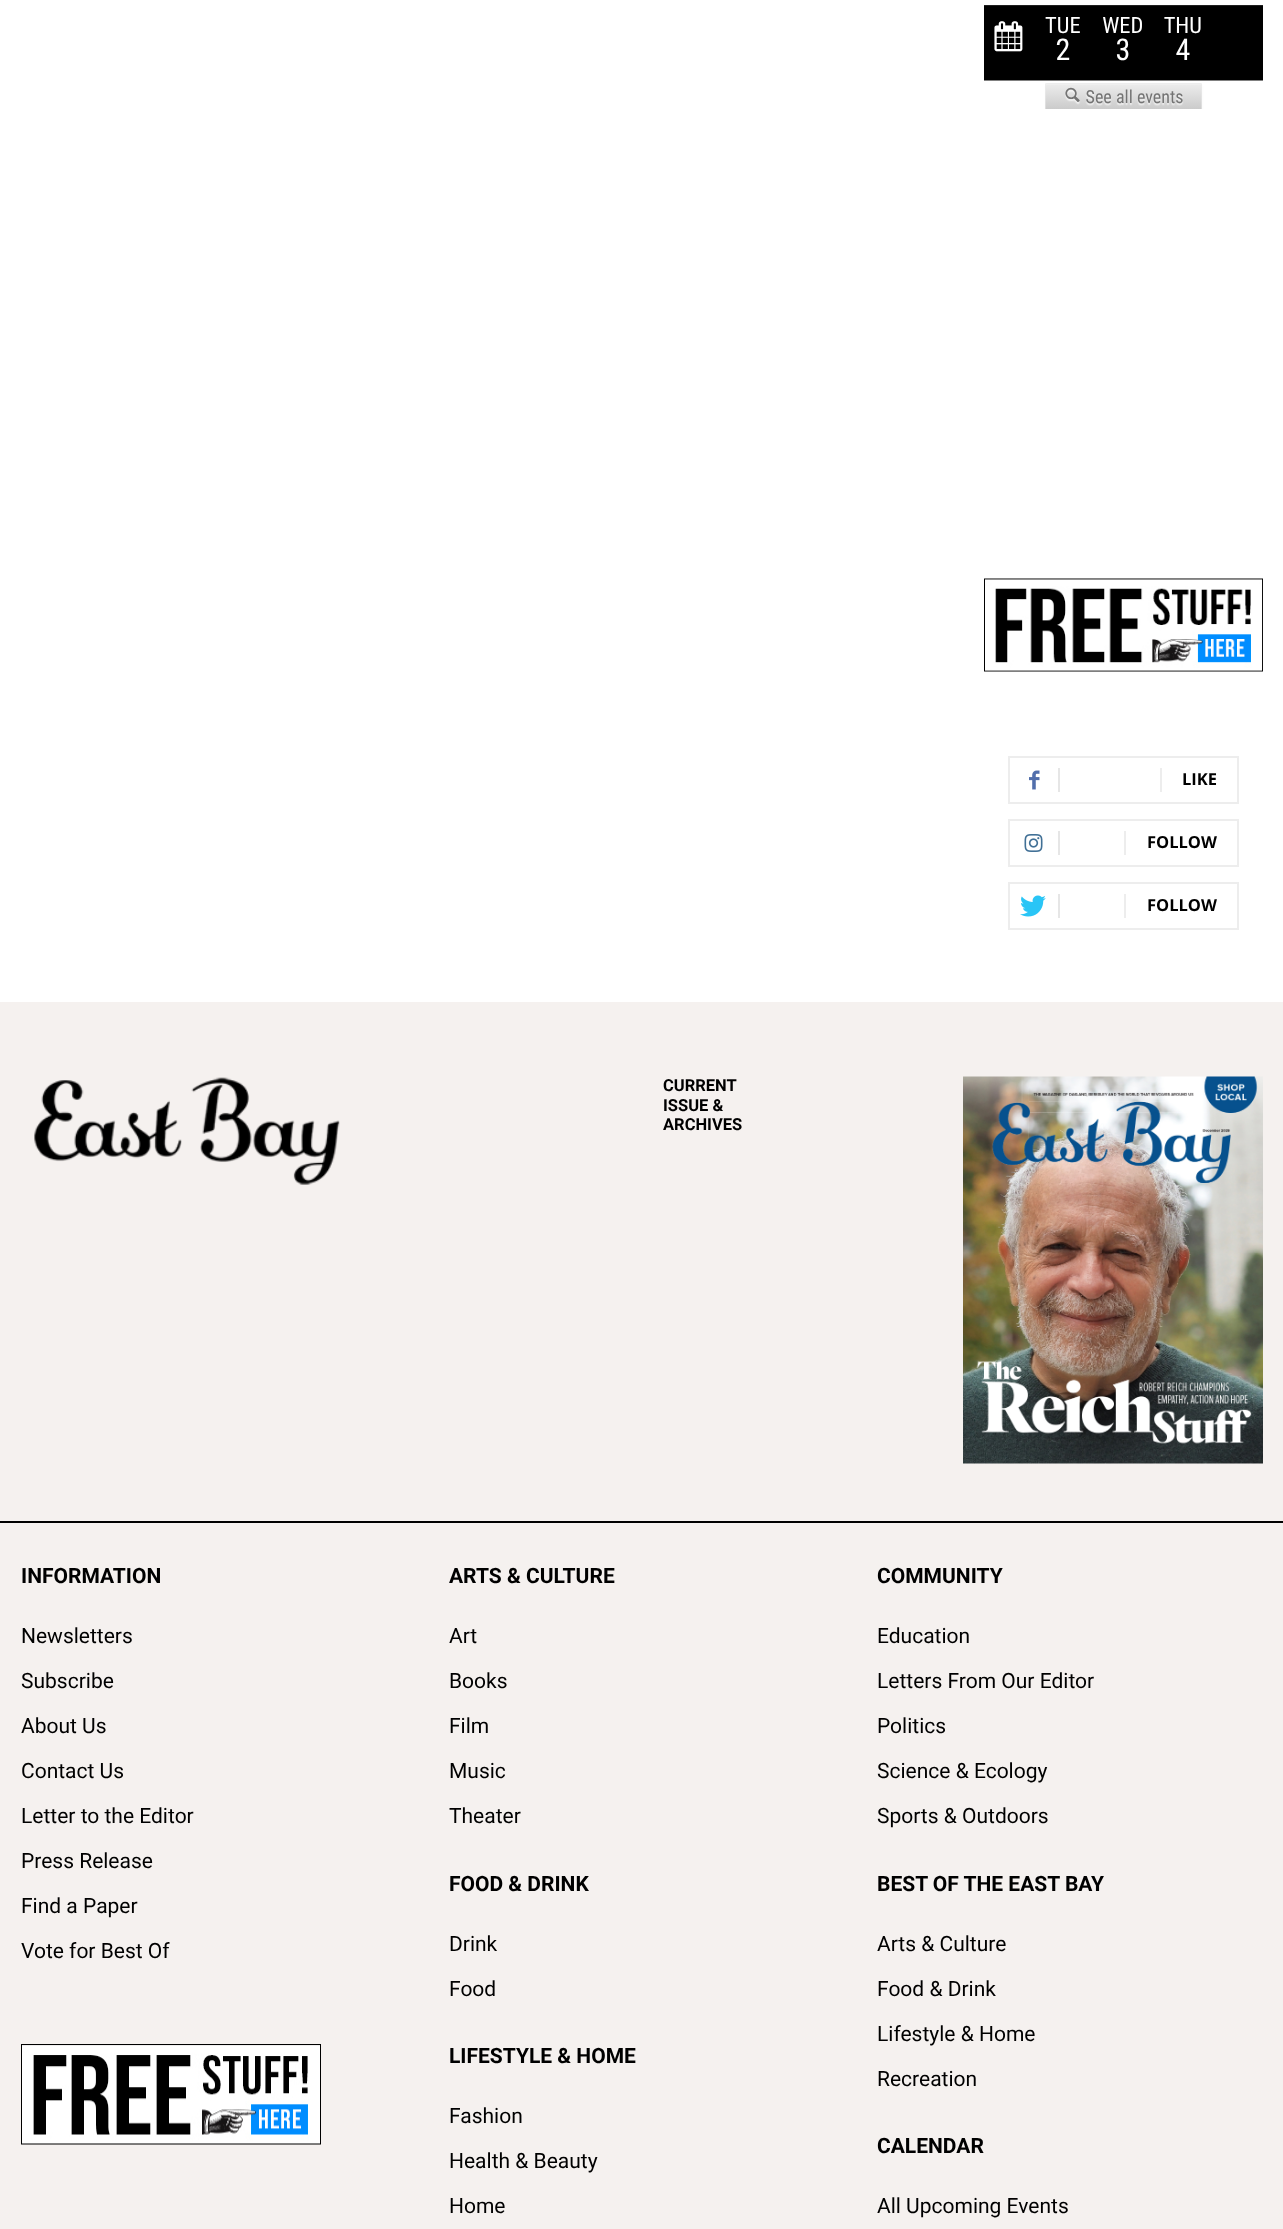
async function draw(canvas) {
  canvas.width = 1283;
  canvas.height = 2229;
  const ctx = canvas.getContext('2d');
  ctx.miterLimit = 4;
  ctx.fontKerning = 'normal';
  function label(s, x, y, font, color) {
    ctx.font = font;
    ctx.fillStyle = color;
    ctx.fillText(s, x, y);
  }
  function rect(x, y, w, h, color) {
    ctx.fillStyle = color;
    ctx.fillRect(x, y, w, h);
  }
  async function image(src, x, y, w, h) {
    const img = new Image();
    img.src = src;
    await img.decode();
    ctx.drawImage(img, x, y, w, h);
  }

  rect(0, 0, 1283, 2229, '#fff');
  await image('assets/img1.png', 984, 5, 279, 104);
  await image('assets/img2.png', 984, 578, 279, 94);
  ctx.strokeStyle = '#ededed';
  ctx.lineWidth = 2;
  ctx.strokeRect(1009, 757, 229, 46);
  await image('assets/img3.png', 1029, 770, 11, 20);
  rect(1058, 768, 2, 24, '#e6e6e6');
  rect(1160, 768, 2, 24, '#ededed');
  label('LIKE', 1182, 785, 'bold 16.5px Open Sans', '#000');
  ctx.strokeRect(1009, 820, 229, 46);
  await image('assets/img4.png', 1024, 834, 19, 18);
  rect(1058, 831, 2, 24, '#e6e6e6');
  rect(1124, 831, 2, 24, '#ededed');
  label('FOLLOW', 1147, 848, 'bold 16.5px Open Sans', '#000');
  ctx.strokeRect(1009, 883, 229, 46);
  await image('assets/img5.png', 1020, 895, 26, 22);
  rect(1058, 894, 2, 24, '#e6e6e6');
  rect(1124, 894, 2, 24, '#ededed');
  label('FOLLOW', 1147, 911, 'bold 16.5px Open Sans', '#000');
  rect(0, 1002, 1283, 1227, '#f5f1ef');
  rect(0, 1521, 1283, 2, '#000');
  await image('assets/img6.png', 34, 1077, 306, 108);
  label('CURRENT', 663, 1091, 'bold 16.5px Roboto', '#000');
  label('ISSUE &', 663, 1111, 'bold 16.5px Roboto', '#000');
  label('ARCHIVES', 663, 1130, 'bold 16.5px Roboto', '#000');
  await image('assets/img7.png', 963, 1076, 300, 388);
  label('INFORMATION', 21, 1583, 'bold 21px Roboto', '#000');
  label('Newsletters', 21, 1643, '21px Roboto', '#000');
  label('Subscribe', 21, 1688, '21px Roboto', '#000');
  label('About Us', 21, 1733, '21px Roboto', '#000');
  label('Contact Us', 21, 1778, '21px Roboto', '#000');
  label('Letter to the Editor', 21, 1823, '21px Roboto', '#000');
  label('Press Release', 21, 1868, '21px Roboto', '#000');
  label('Find a Paper', 21, 1913, '21px Roboto', '#000');
  label('Vote for Best Of', 21, 1958, '21px Roboto', '#000');
  await image('assets/img8.png', 21, 2044, 300, 101);
  label('ARTS & CULTURE', 449, 1583, 'bold 21px Roboto', '#000');
  label('Art', 449, 1643, '21px Roboto', '#000');
  label('Books', 449, 1688, '21px Roboto', '#000');
  label('Film', 449, 1733, '21px Roboto', '#000');
  label('Music', 449, 1778, '21px Roboto', '#000');
  label('Theater', 449, 1823, '21px Roboto', '#000');
  label('FOOD & DRINK', 449, 1891, 'bold 21px Roboto', '#000');
  label('Drink', 449, 1951, '21px Roboto', '#000');
  label('Food', 449, 1996, '21px Roboto', '#000');
  label('LIFESTYLE & HOME', 449, 2063, 'bold 21px Roboto', '#000');
  label('Fashion', 449, 2123, '21px Roboto', '#000');
  label('Health & Beauty', 449, 2168, '21px Roboto', '#000');
  label('Home', 449, 2213, '21px Roboto', '#000');
  label('COMMUNITY', 877, 1583, 'bold 21px Roboto', '#000');
  label('Education', 877, 1643, '21px Roboto', '#000');
  label('Letters From Our Editor', 877, 1688, '21px Roboto', '#000');
  label('Politics', 877, 1733, '21px Roboto', '#000');
  label('Science & Ecology', 877, 1778, '21px Roboto', '#000');
  label('Sports & Outdoors', 877, 1823, '21px Roboto', '#000');
  label('BEST OF THE EAST BAY', 877, 1891, 'bold 21px Roboto', '#000');
  label('Arts & Culture', 877, 1951, '21px Roboto', '#000');
  label('Food & Drink', 877, 1996, '21px Roboto', '#000');
  label('Lifestyle & Home', 877, 2041, '21px Roboto', '#000');
  label('Recreation', 877, 2086, '21px Roboto', '#000');
  label('CALENDAR', 877, 2153, 'bold 21px Roboto', '#000');
  label('All Upcoming Events', 877, 2213, '21px Roboto', '#000');
}

draw(document.querySelector('canvas'));
